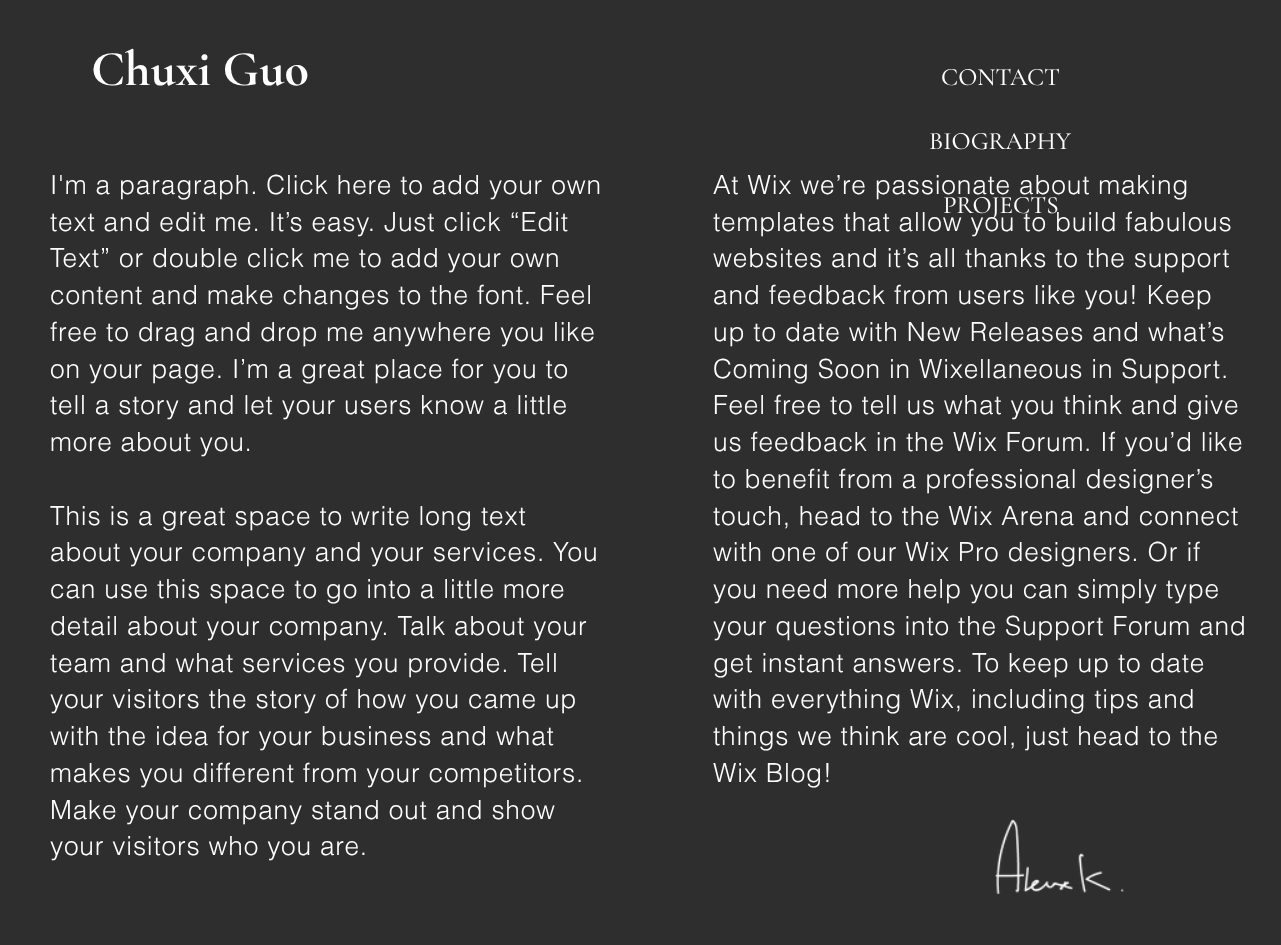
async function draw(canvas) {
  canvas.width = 1281;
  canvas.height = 945;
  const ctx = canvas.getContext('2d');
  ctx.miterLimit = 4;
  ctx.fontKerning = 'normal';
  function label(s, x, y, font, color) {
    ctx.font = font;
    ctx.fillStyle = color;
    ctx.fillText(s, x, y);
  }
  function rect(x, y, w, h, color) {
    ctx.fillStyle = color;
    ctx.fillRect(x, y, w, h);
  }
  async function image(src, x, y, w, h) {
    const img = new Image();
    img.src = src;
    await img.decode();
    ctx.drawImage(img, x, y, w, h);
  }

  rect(0, 0, 1281, 945, '#2f2e2e');
  label('Chuxi Guo', 91, 85, 'bold 50px Cormorant Garamond', '#fff');
  label('CONTACT', 941, 85, '500 25px Cormorant Garamond', '#fff');
  label('BIOGRAPHY', 929, 149, '500 25px Cormorant Garamond', '#fff');
  label('PROJECTS', 943, 213, '500 25px Cormorant Garamond', '#fff');
  ctx.letterSpacing = '0.8px';
  label('I\'m a paragraph. Click here to add your own', 50, 194, '300 26.25px helvetica', '#fff');
  label('text and edit me. It’s easy. Just click “Edit', 50, 231, '300 26.25px helvetica', '#fff');
  label('Text” or double click me to add your own', 50, 267, '300 26.25px helvetica', '#fff');
  label('content and make changes to the font. Feel', 50, 304, '300 26.25px helvetica', '#fff');
  label('free to drag and drop me anywhere you like', 50, 341, '300 26.25px helvetica', '#fff');
  label('on your page. I’m a great place for you to', 50, 378, '300 26.25px helvetica', '#fff');
  label('tell a story and let your users know a little', 50, 414, '300 26.25px helvetica', '#fff');
  label('more about you.', 50, 451, '300 26.25px helvetica', '#fff');
  label('This is a great space to write long text', 50, 525, '300 26.25px helvetica', '#fff');
  label('about your company and your services. You', 50, 561, '300 26.25px helvetica', '#fff');
  label('can use this space to go into a little more', 50, 598, '300 26.25px helvetica', '#fff');
  label('detail about your company. Talk about your', 50, 635, '300 26.25px helvetica', '#fff');
  label('team and what services you provide. Tell', 50, 672, '300 26.25px helvetica', '#fff');
  label('your visitors the story of how you came up', 50, 708, '300 26.25px helvetica', '#fff');
  label('with the idea for your business and what', 50, 745, '300 26.25px helvetica', '#fff');
  label('makes you different from your competitors.', 50, 782, '300 26.25px helvetica', '#fff');
  label('Make your company stand out and show', 50, 819, '300 26.25px helvetica', '#fff');
  label('your visitors who you are.', 50, 855, '300 26.25px helvetica', '#fff');
  label('At Wix we’re passionate about making', 713, 194, '300 26.25px helvetica', '#fff');
  label('templates that allow you to build fabulous', 713, 231, '300 26.25px helvetica', '#fff');
  label('websites and it’s all thanks to the support', 713, 267, '300 26.25px helvetica', '#fff');
  label('and feedback from users like you! Keep', 713, 304, '300 26.25px helvetica', '#fff');
  label('up to date with New Releases and what’s', 713, 341, '300 26.25px helvetica', '#fff');
  label('Coming Soon in Wixellaneous in Support.', 713, 378, '300 26.25px helvetica', '#fff');
  label('Feel free to tell us what you think and give', 713, 414, '300 26.25px helvetica', '#fff');
  label('us feedback in the Wix Forum. If you’d like', 713, 451, '300 26.25px helvetica', '#fff');
  label('to benefit from a professional designer’s', 713, 488, '300 26.25px helvetica', '#fff');
  label('touch, head to the Wix Arena and connect', 713, 525, '300 26.25px helvetica', '#fff');
  label('with one of our Wix Pro designers. Or if', 713, 561, '300 26.25px helvetica', '#fff');
  label('you need more help you can simply type', 713, 598, '300 26.25px helvetica', '#fff');
  label('your questions into the Support Forum and', 713, 635, '300 26.25px helvetica', '#fff');
  label('get instant answers. To keep up to date', 713, 672, '300 26.25px helvetica', '#fff');
  label('with everything Wix, including tips and', 713, 708, '300 26.25px helvetica', '#fff');
  label('things we think are cool, just head to the', 713, 745, '300 26.25px helvetica', '#fff');
  label('Wix Blog!', 713, 782, '300 26.25px helvetica', '#fff');
  await image('assets/img1.png', 995, 819, 129, 76);
}

draw(document.querySelector('canvas'));
